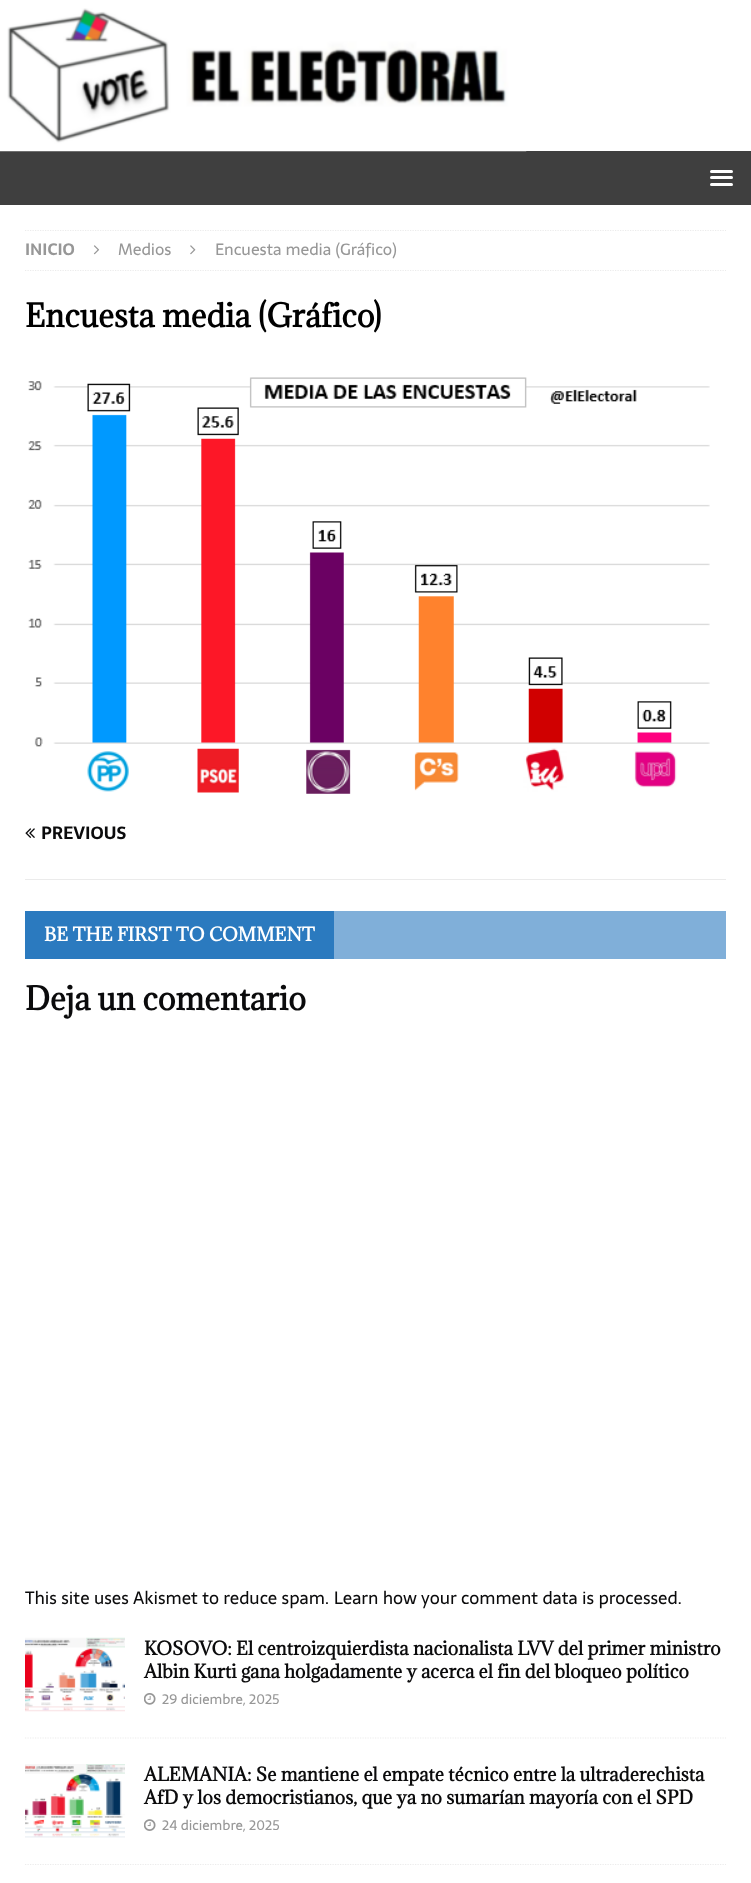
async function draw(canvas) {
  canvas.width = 751;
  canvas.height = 1883;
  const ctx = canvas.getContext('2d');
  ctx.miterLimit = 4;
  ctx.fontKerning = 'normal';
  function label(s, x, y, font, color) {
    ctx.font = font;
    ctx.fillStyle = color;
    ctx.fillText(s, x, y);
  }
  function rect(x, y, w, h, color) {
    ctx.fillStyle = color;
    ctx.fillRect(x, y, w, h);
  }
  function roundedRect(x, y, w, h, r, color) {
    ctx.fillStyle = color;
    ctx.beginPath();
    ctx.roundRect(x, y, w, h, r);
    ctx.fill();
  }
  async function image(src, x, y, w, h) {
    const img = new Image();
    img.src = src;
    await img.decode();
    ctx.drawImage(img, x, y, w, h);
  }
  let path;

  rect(0, 0, 751, 1883, '#fff');
  rect(0, 151, 751, 54, '#3f3f3f');
  await image('assets/img1.png', 0, 8, 527, 144);
  roundedRect(710, 170, 23, 3, 1.5, '#fff');
  roundedRect(710, 176, 23, 3, 1.5, '#fff');
  roundedRect(710, 183, 23, 3, 1.5, '#fff');
  ctx.save();
  ctx.beginPath();
  ctx.rect(25, 230, 701, 1383);
  ctx.clip();
  path = new Path2D('M25 230.5H726');
  ctx.strokeStyle = '#ebebeb';
  ctx.lineWidth = 1.2;
  ctx.setLineDash([1.25, 1.25]);
  ctx.stroke(path);
  ctx.restore();
  path = new Path2D('M25 270.5H726');
  ctx.strokeStyle = '#ebebeb';
  ctx.lineWidth = 1.2;
  ctx.setLineDash([1.25, 1.25]);
  ctx.stroke(path);
  label('INICIO', 25, 255, 'bold 16.25px Sarala', '#979797');
  await image('assets/img2.png', 93, 245, 7, 10);
  label('Medios', 118, 255, '16.25px Sarala', '#979797');
  await image('assets/img3.png', 190, 245, 6, 10);
  label('Encuesta media (Gráfico)', 215, 255, '16.25px Sarala', '#979797');
  label('Encuesta media (Gráfico)', 25, 327, 'bold 30px Adamina', '#000');
  await image('assets/img4.png', 28, 377, 682, 417);
  rect(25, 879, 701, 1, '#ebebeb');
  await image('assets/img5.png', 25, 828, 10, 10);
  label('PREVIOUS', 41, 839, 'bold 17.5px Sarala', '#0b0b0c');
  rect(334, 911, 392, 48, '#80afd9');
  rect(25, 911, 309, 48, '#2b7abf');
  label('BE THE FIRST TO COMMENT', 44, 941, 'bold 17.5px Adamina', '#fff');
  label('Deja un comentario', 25, 1010, 'bold 30px Adamina', '#0b0b0c');
  label('This site uses Akismet to reduce spam. Learn how your comment data is processed.', 25, 1604, '17.5px Sarala', '#0b0b0c');
  path = new Path2D('M25 1738H726');
  ctx.stroke(path);
  await image('assets/img6.png', 25, 1637, 100, 75);
  label('KOSOVO: El centroizquierdista nacionalista LVV del primer ministro', 144, 1655, 'bold 17.5px Adamina', '#0b0b0c');
  label('Albin Kurti gana holgadamente y acerca el fin del bloqueo político', 144, 1678, 'bold 17.5px Adamina', '#0b0b0c');
  await image('assets/img7.png', 144, 1693, 12, 12);
  label('29 diciembre, 2025', 162, 1704, '13.75px Sarala', '#979797');
  path = new Path2D('M25 1864.5H726');
  ctx.stroke(path);
  await image('assets/img8.png', 25, 1764, 100, 74);
  label('ALEMANIA: Se mantiene el empate técnico entre la ultraderechista', 144, 1781, 'bold 17.5px Adamina', '#0b0b0c');
  label('AfD y los democristianos, que ya no sumarían mayoría con el SPD', 144, 1804, 'bold 17.5px Adamina', '#0b0b0c');
  await image('assets/img9.png', 144, 1819, 12, 12);
  label('24 diciembre, 2025', 162, 1830, '13.75px Sarala', '#979797');
}

draw(document.querySelector('canvas'));
